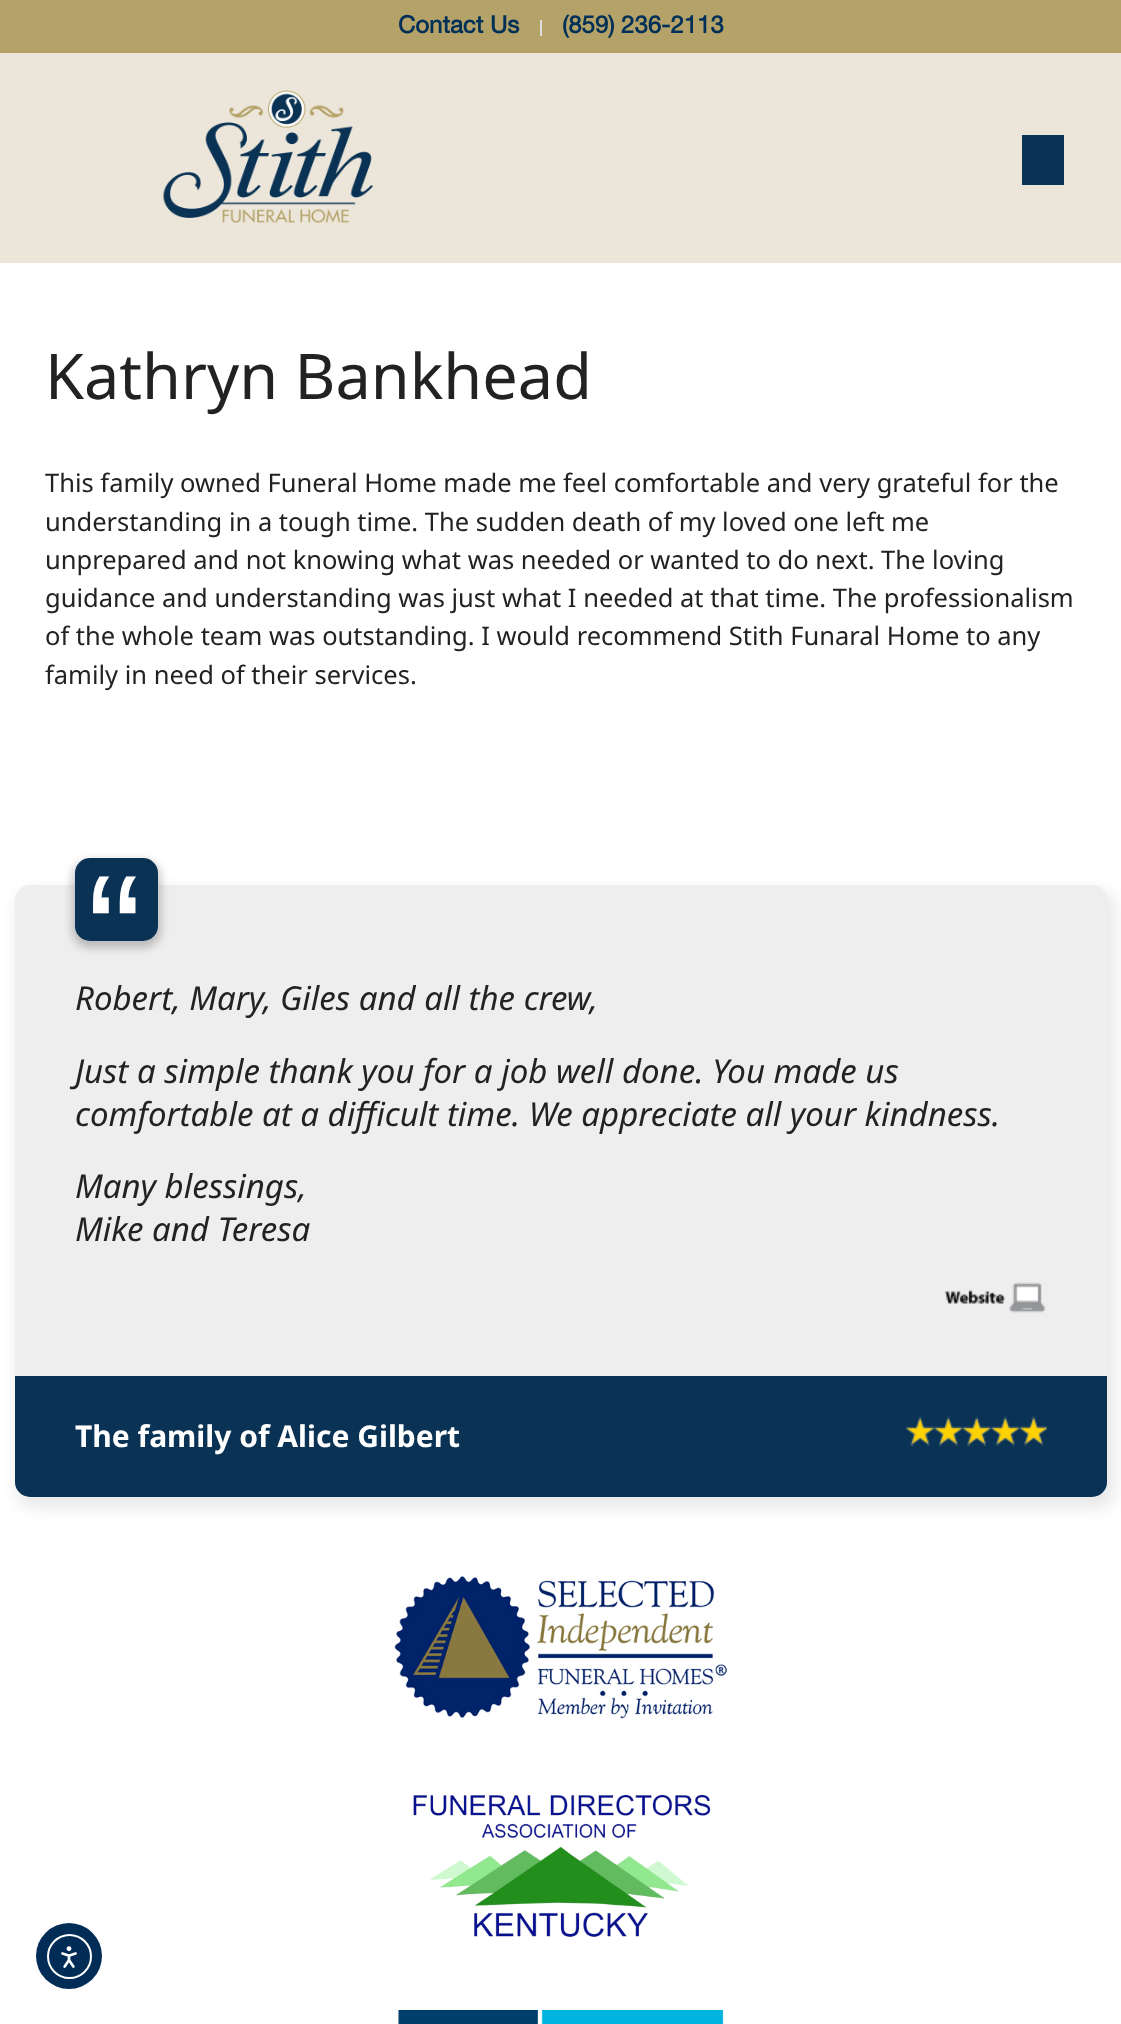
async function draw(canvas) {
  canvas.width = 1121;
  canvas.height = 2024;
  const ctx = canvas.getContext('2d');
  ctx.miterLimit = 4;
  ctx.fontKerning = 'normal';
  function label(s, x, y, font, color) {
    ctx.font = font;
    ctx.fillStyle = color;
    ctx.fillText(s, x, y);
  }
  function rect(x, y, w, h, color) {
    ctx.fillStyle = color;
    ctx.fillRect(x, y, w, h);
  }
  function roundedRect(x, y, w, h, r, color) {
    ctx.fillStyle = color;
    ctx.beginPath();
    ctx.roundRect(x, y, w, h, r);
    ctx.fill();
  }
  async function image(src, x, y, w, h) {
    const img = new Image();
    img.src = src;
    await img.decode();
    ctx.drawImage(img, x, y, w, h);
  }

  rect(0, 0, 1121, 2024, '#fff');
  rect(0, 0, 1121, 53, '#b4a268');
  label('Contact Us', 398, 33, 'bold 24px Helvetica Neue', '#003057');
  rect(540, 20, 2, 16, '#ddd');
  label('(859) 236-2113', 562, 33, 'bold 24px Helvetica Neue', '#003057');
  rect(0, 53, 1121, 210, '#ece6da');
  await image('assets/img1.png', 163, 90, 211, 133);
  rect(1022, 135, 42, 50, '#093254');
  label('Kathryn Bankhead', 45, 399, '63px Noto Sans', '#222');
  label('This family owned Funeral Home made me feel comfortable and very grateful for the', 45, 492, '25.5px Noto Sans', '#222');
  label('understanding in a tough time. The sudden death of my loved one left me', 45, 531, '25.5px Noto Sans', '#222');
  label('unprepared and not knowing what was needed or wanted to do next. The loving', 45, 569, '25.5px Noto Sans', '#222');
  label('guidance and understanding was just what I needed at that time. The professionalism', 45, 607, '25.5px Noto Sans', '#222');
  label('of the whole team was outstanding. I would recommend Stith Funaral Home to any', 45, 645, '25.5px Noto Sans', '#222');
  label('family in need of their services.', 45, 684, '25.5px Noto Sans', '#222');
  ctx.fillStyle = '#00000017';
  ctx.filter = 'blur(8px)';
  ctx.beginPath();
  ctx.roundRect(17, 890, 1098, 618, 18);
  ctx.fill();
  ctx.filter = 'none';
  roundedRect(15, 885, 1092, 612, 15, '#eee');
  ctx.fillStyle = '#00000036';
  ctx.filter = 'blur(4.5px)';
  ctx.beginPath();
  ctx.roundRect(72, 860, 89, 88, 18);
  ctx.fill();
  ctx.filter = 'none';
  roundedRect(75, 858, 83, 83, 15, '#093254');
  label('“', 87, 990, '165px Liberation Sans', '#fff');
  label('Robert, Mary, Giles and all the crew,', 75, 1010, 'italic 33px Noto Sans', '#222');
  label('Just a simple thank you for a job well done. You made us', 75, 1083, 'italic 33px Noto Sans', '#222');
  label('comfortable at a difficult time. We appreciate all your kindness.', 75, 1126, 'italic 33px Noto Sans', '#222');
  label('Many blessings,', 75, 1198, 'italic 33px Noto Sans', '#222');
  label('Mike and Teresa', 75, 1241, 'italic 33px Noto Sans', '#222');
  await image('assets/img2.png', 944, 1282, 102, 31);
  ctx.fillStyle = '#093254';
  ctx.beginPath();
  ctx.roundRect(15, 1376, 1092, 121, [0, 0, 15, 15]);
  ctx.fill();
  label('The family of Alice Gilbert', 75, 1447, 'bold 30px Noto Sans', '#fff');
  await image('assets/img3.png', 906, 1416, 141, 31);
  await image('assets/img4.png', 394, 1576, 333, 143);
  await image('assets/img5.png', 413, 1794, 298, 143);
  await image('assets/img6.png', 398, 2010, 326, 14);
  ctx.fillStyle = '#002c55';
  ctx.beginPath();
  ctx.arc(69, 1956, 33, 0, 2 * Math.PI);
  ctx.fill();
  ctx.beginPath();
  ctx.arc(69.5, 1956.5, 21.5, 0, 2 * Math.PI);
  ctx.strokeStyle = '#fff';
  ctx.lineWidth = 2;
  ctx.stroke();
  await image('assets/img7.png', 61, 1946, 16, 22);
}

draw(document.querySelector('canvas'));
